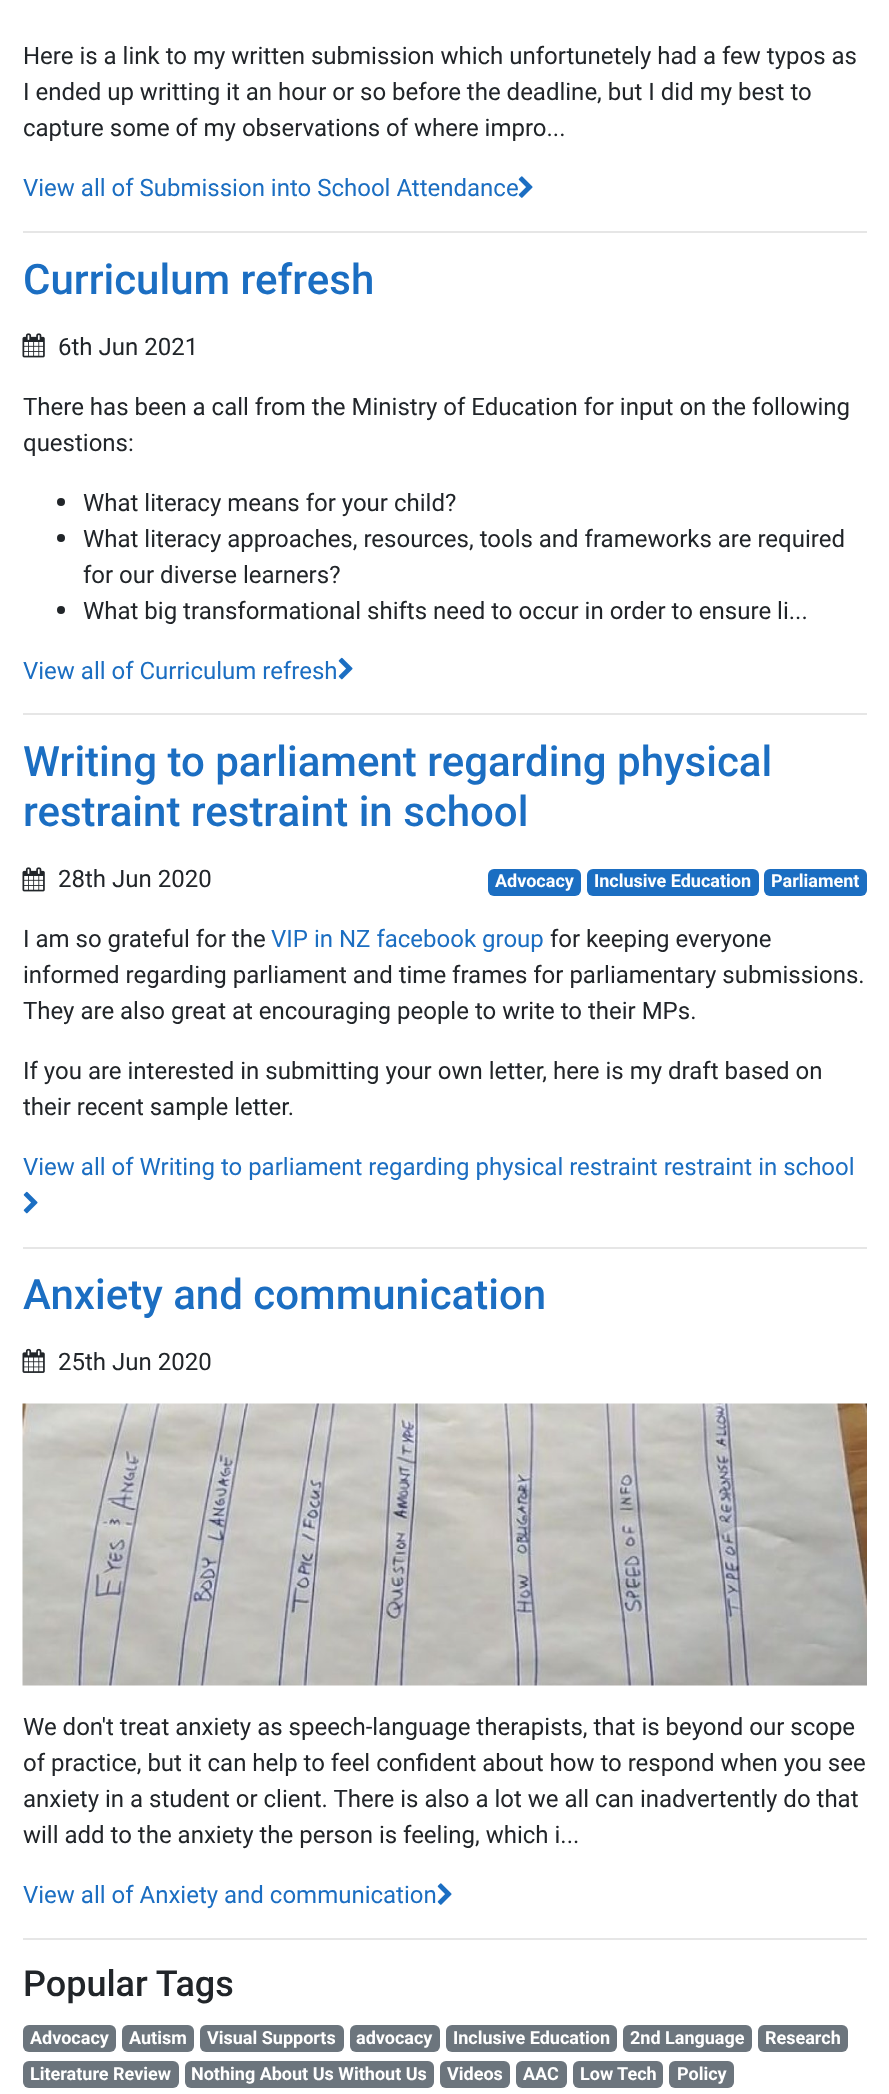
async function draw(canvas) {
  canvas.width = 889;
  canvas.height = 2094;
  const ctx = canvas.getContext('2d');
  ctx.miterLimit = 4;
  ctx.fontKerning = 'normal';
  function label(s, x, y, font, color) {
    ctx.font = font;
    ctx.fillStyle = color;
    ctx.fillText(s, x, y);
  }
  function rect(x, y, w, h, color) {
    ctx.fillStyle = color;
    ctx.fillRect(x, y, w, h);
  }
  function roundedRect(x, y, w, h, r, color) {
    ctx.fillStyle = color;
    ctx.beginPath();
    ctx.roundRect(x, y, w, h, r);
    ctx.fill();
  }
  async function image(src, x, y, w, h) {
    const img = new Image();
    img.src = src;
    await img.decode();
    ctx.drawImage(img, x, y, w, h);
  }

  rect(0, 0, 889, 2094, '#fff');
  label('Here is a link to my written submission which unfortunetely had a few typos as', 23, 64, '24px Roboto', '#212529');
  label('I ended up writting it an hour or so before the deadline, but I did my best to', 23, 100, '24px Roboto', '#212529');
  label('capture some of my observations of where impro...', 23, 136, '24px Roboto', '#212529');
  label('View all of Submission into School Attendance', 23, 196, '24px Roboto', '#1b6ec2');
  await image('assets/img1.png', 518, 176, 15, 22);
  rect(23, 231, 844, 2, '#e6e6e6');
  label('Curriculum refresh', 23, 294, '500 42px Roboto', '#1b6ec2');
  await image('assets/img2.png', 22, 333, 23, 25);
  label('6th Jun 2021', 58, 355, '24px Roboto', '#212529');
  label('There has been a call from the Ministry of Education for input on the following', 23, 415, '24px Roboto', '#212529');
  label('questions:', 23, 451, '24px Roboto', '#212529');
  ctx.beginPath();
  ctx.arc(61, 502, 4, 0, 2 * Math.PI);
  ctx.fill();
  label('What literacy means for your child?', 83, 511, '24px Roboto', '#212529');
  ctx.beginPath();
  ctx.arc(61, 538, 4, 0, 2 * Math.PI);
  ctx.fill();
  label('What literacy approaches, resources, tools and frameworks are required', 83, 547, '24px Roboto', '#212529');
  label('for our diverse learners?', 83, 583, '24px Roboto', '#212529');
  ctx.beginPath();
  ctx.arc(61, 610, 4, 0, 2 * Math.PI);
  ctx.fill();
  label('What big transformational shifts need to occur in order to ensure li...', 83, 619, '24px Roboto', '#212529');
  label('View all of Curriculum refresh', 23, 679, '24px Roboto', '#1b6ec2');
  await image('assets/img3.png', 338, 657, 15, 23);
  rect(23, 713, 844, 2, '#e6e6e6');
  label('Writing to parliament regarding physical', 23, 776, '500 42px Roboto', '#1b6ec2');
  label('restraint restraint in school', 23, 826, '500 42px Roboto', '#1b6ec2');
  await image('assets/img2.png', 22, 867, 23, 25);
  label('28th Jun 2020', 58, 887, '24px Roboto', '#212529');
  roundedRect(488, 869, 93, 27, 6, '#1b6ec2');
  label('Advocacy', 495, 887, 'bold 18px Roboto', '#fff');
  roundedRect(587, 869, 172, 27, 6, '#1b6ec2');
  label('Inclusive Education', 594, 887, 'bold 18px Roboto', '#fff');
  roundedRect(764, 869, 103, 27, 6, '#1b6ec2');
  label('Parliament', 771, 887, 'bold 18px Roboto', '#fff');
  label('I am so grateful for the', 23, 947, '24px Roboto', '#212529');
  label('VIP in NZ facebook group', 271, 947, '24px Roboto', '#1b6ec2');
  label('for keeping everyone', 550, 947, '24px Roboto', '#212529');
  label('informed regarding parliament and time frames for parliamentary submissions.', 23, 983, '24px Roboto', '#212529');
  label('They are also great at encouraging people to write to their MPs.', 23, 1019, '24px Roboto', '#212529');
  label('If you are interested in submitting your own letter, here is my draft based on', 23, 1079, '24px Roboto', '#212529');
  label('their recent sample letter.', 23, 1115, '24px Roboto', '#212529');
  label('View all of Writing to parliament regarding physical restraint restraint in school', 23, 1175, '24px Roboto', '#1b6ec2');
  await image('assets/img3.png', 23, 1191, 15, 23);
  rect(23, 1247, 844, 2, '#e6e6e6');
  label('Anxiety and communication', 23, 1309, '500 42px Roboto', '#1b6ec2');
  await image('assets/img4.png', 22, 1348, 23, 25);
  label('25th Jun 2020', 58, 1370, '24px Roboto', '#212529');
  await image('assets/img5.png', 22, 1403, 845, 283);
  label('We don\'t treat anxiety as speech-language therapists, that is beyond our scope', 23, 1735, '24px Roboto', '#212529');
  label('of practice, but it can help to feel confident about how to respond when you see', 23, 1771, '24px Roboto', '#212529');
  label('anxiety in a student or client. There is also a lot we all can inadvertently do that', 23, 1807, '24px Roboto', '#212529');
  label('will add to the anxiety the person is feeling, which i...', 23, 1843, '24px Roboto', '#212529');
  label('View all of Anxiety and communication', 23, 1903, '24px Roboto', '#1b6ec2');
  await image('assets/img1.png', 437, 1883, 15, 22);
  rect(23, 1938, 844, 2, '#e6e6e6');
  label('Popular Tags', 23, 1996, '500 36px Roboto', '#212529');
  roundedRect(23, 2025, 93, 27, 6, '#6c757d');
  label('Advocacy', 30, 2044, 'bold 18px Roboto', '#fff');
  roundedRect(122, 2025, 72, 27, 6, '#6c757d');
  label('Autism', 129, 2044, 'bold 18px Roboto', '#fff');
  roundedRect(200, 2025, 144, 27, 6, '#6c757d');
  label('Visual Supports', 207, 2044, 'bold 18px Roboto', '#fff');
  roundedRect(350, 2025, 90, 27, 6, '#6c757d');
  label('advocacy', 356, 2044, 'bold 18px Roboto', '#fff');
  roundedRect(446, 2025, 171, 27, 6, '#6c757d');
  label('Inclusive Education', 453, 2044, 'bold 18px Roboto', '#fff');
  roundedRect(623, 2025, 129, 27, 6, '#6c757d');
  label('2nd Language', 630, 2044, 'bold 18px Roboto', '#fff');
  roundedRect(758, 2025, 90, 27, 6, '#6c757d');
  label('Research', 765, 2044, 'bold 18px Roboto', '#fff');
  roundedRect(23, 2061, 156, 27, 6, '#6c757d');
  label('Literature Review', 30, 2080, 'bold 18px Roboto', '#fff');
  roundedRect(185, 2061, 249, 27, 6, '#6c757d');
  label('Nothing About Us Without Us', 191, 2080, 'bold 18px Roboto', '#fff');
  roundedRect(440, 2061, 70, 27, 6, '#6c757d');
  label('Videos', 447, 2080, 'bold 18px Roboto', '#fff');
  roundedRect(516, 2061, 51, 27, 6, '#6c757d');
  label('AAC', 523, 2080, 'bold 18px Roboto', '#fff');
  roundedRect(573, 2061, 90, 27, 6, '#6c757d');
  label('Low Tech', 580, 2080, 'bold 18px Roboto', '#fff');
  roundedRect(669, 2061, 65, 27, 6, '#6c757d');
  label('Policy', 677, 2080, 'bold 18px Roboto', '#fff');
}

draw(document.querySelector('canvas'));
